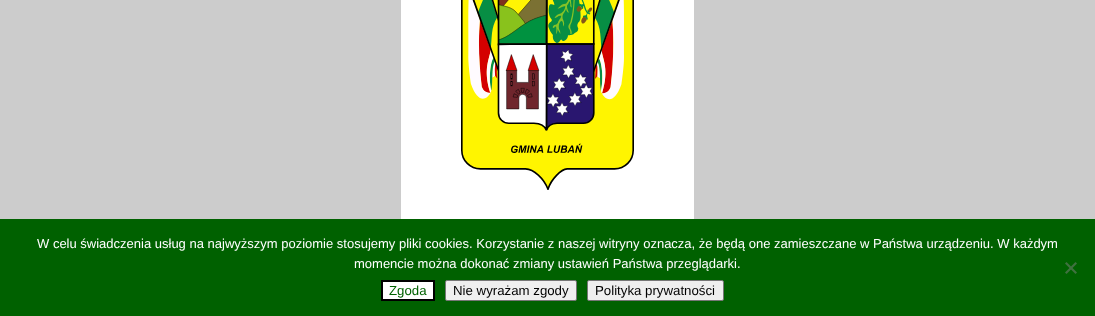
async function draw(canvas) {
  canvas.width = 1095;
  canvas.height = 316;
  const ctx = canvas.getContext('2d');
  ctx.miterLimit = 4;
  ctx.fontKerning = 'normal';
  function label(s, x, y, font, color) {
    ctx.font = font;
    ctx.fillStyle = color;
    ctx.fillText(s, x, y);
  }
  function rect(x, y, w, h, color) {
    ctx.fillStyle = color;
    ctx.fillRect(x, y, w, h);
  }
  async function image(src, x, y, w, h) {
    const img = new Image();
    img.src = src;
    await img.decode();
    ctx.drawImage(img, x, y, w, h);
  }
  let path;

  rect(0, 0, 1095, 316, '#ccc');
  rect(401, 0, 293, 219, '#fff');
  await image('assets/img1.png', 461, 0, 173, 190);
  rect(0, 219, 1095, 97, '#006100');
  label('W celu świadczenia usług na najwyższym poziomie stosujemy pliki cookies. Korzystanie z naszej witryny oznacza, że będą one zamieszczane w Państwa urządzeniu. W każdym', 37, 248, '13px Liberation Sans', '#fff');
  label('momencie można dokonać zmiany ustawień Państwa przeglądarki.', 354, 268, '13px Liberation Sans', '#fff');
  ctx.fillStyle = '#407140';
  path = new Path2D('M1075.5 262L1077 263.5L1066.5 274L1065 272.5Z');
  ctx.fill(path);
  path = new Path2D('M1065 263.5L1066.5 262L1077 272.5L1075.5 274Z');
  ctx.fill(path);
  ctx.fillStyle = '#fff';
  ctx.beginPath();
  ctx.rect(382, 281, 52, 19);
  ctx.fill();
  ctx.strokeStyle = '#000';
  ctx.lineWidth = 2;
  ctx.stroke();
  label('Zgoda', 389, 295, '13.25px Liberation Sans', '#006100');
  ctx.fillStyle = '#efefef';
  ctx.beginPath();
  ctx.roundRect(445.5, 280.5, 131, 20, 1.5);
  ctx.fill();
  ctx.strokeStyle = '#767676';
  ctx.lineWidth = 1;
  ctx.stroke();
  label('Nie wyrażam zgody', 453, 295, '13.25px Liberation Sans', '#000');
  ctx.fillStyle = '#efefef';
  ctx.beginPath();
  ctx.roundRect(587.5, 280.5, 136, 20, 1.5);
  ctx.fill();
  ctx.stroke();
  label('Polityka prywatności', 595, 295, '13.25px Liberation Sans', '#000');
}

draw(document.querySelector('canvas'));
